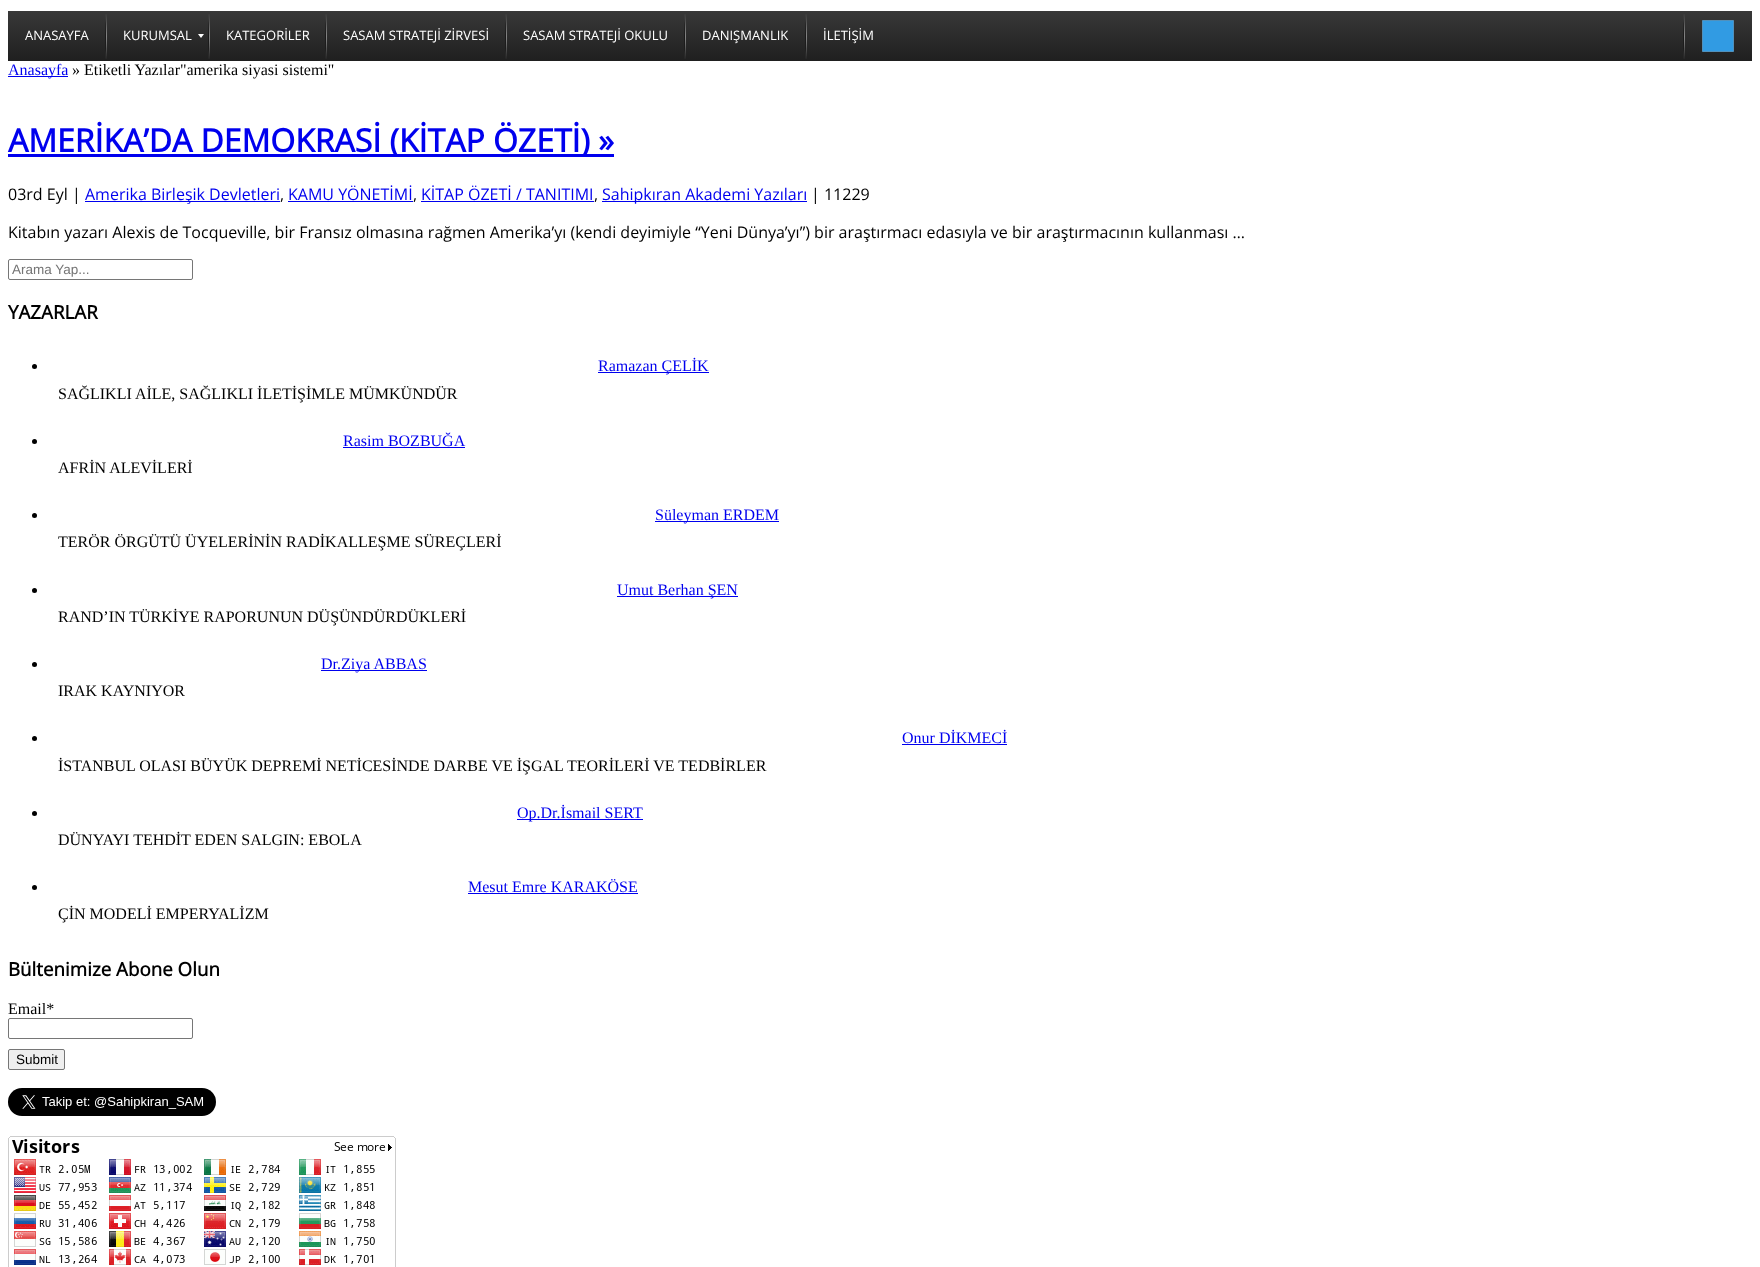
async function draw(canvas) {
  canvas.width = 1760;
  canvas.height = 1267;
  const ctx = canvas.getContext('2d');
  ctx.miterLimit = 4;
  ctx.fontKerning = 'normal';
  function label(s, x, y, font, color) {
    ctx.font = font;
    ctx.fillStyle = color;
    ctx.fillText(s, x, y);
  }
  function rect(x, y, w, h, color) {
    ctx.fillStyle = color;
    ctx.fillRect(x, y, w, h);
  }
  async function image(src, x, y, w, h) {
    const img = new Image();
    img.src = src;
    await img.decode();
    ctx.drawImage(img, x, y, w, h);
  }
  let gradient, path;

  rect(0, 0, 1760, 1267, '#fff');
  gradient = ctx.createLinearGradient(880, 11, 880, 61);
  gradient.addColorStop(0, '#383838');
  gradient.addColorStop(1, '#1f1f1f');
  ctx.fillStyle = gradient;
  ctx.fillRect(8, 11, 1744, 50);
  label('ANASAYFA', 25, 40, '13px Open Sans', '#fff');
  await image('assets/img1.png', 105, 14, 2, 45);
  label('KURUMSAL', 123, 40, '13px Open Sans', '#fff');
  path = new Path2D('M198 34H204L201 38Z');
  ctx.fill(path);
  await image('assets/img1.png', 208, 14, 2, 45);
  label('KATEGORİLER', 226, 40, '13px Open Sans', '#fff');
  await image('assets/img1.png', 325, 14, 2, 45);
  label('SASAM STRATEJİ ZİRVESİ', 343, 40, '13px Open Sans', '#fff');
  await image('assets/img1.png', 505, 14, 2, 45);
  label('SASAM STRATEJİ OKULU', 523, 40, '13px Open Sans', '#fff');
  await image('assets/img1.png', 684, 14, 2, 45);
  label('DANIŞMANLIK', 702, 40, '13px Open Sans', '#fff');
  await image('assets/img1.png', 805, 14, 2, 45);
  label('İLETİŞİM', 823, 40, '13px Open Sans', '#fff');
  await image('assets/img1.png', 1683, 14, 2, 45);
  ctx.fillStyle = '#319be3';
  ctx.beginPath();
  ctx.rect(1702.5, 20.5, 31, 31);
  ctx.fill();
  ctx.strokeStyle = '#5190bb';
  ctx.stroke();
  rect(8, 76, 60, 1, '#00e');
  label('Anasayfa', 8, 75, '16px Liberation Serif', '#00e');
  label('» Etiketli Yazılar"amerika siyasi sistemi"', 72, 75, '16px Liberation Serif', '#000');
  rect(8, 154, 606, 3, '#00e');
  label('AMERİKA’DA DEMOKRASİ (KİTAP ÖZETİ) »', 8, 152, 'bold 32px Open Sans', '#00e');
  label('03rd Eyl |', 8, 200, '16px Open Sans', '#000');
  rect(85, 201, 195, 1, '#00e');
  label('Amerika Birleşik Devletleri', 85, 200, '16px Open Sans', '#00e');
  label(',', 280, 200, '16px Open Sans', '#000');
  label('KAMU YÖNETİMİ', 288, 200, '16px Open Sans', '#00e');
  label(',', 413, 200, '16px Open Sans', '#000');
  rect(288, 201, 125, 1, '#00e');
  label('KİTAP ÖZETİ / TANITIMI', 421, 200, '16px Open Sans', '#00e');
  label(',', 594, 200, '16px Open Sans', '#000');
  rect(421, 201, 173, 1, '#00e');
  rect(602, 201, 205, 1, '#00e');
  label('Sahipkıran Akademi Yazıları', 602, 200, '16px Open Sans', '#00e');
  label('| 11229', 811, 200, '16px Open Sans', '#000');
  label('Kitabın yazarı Alexis de Tocqueville, bir Fransız olmasına rağmen Amerika’yı (kendi deyimiyle “Yeni Dünya’yı”) bir araştırmacı edasıyla ve bir araştırmacının kullanması …', 8, 238, '16px Open Sans', '#000');
  ctx.beginPath();
  ctx.roundRect(8.5, 259.5, 184, 20, 1.5);
  ctx.strokeStyle = '#767676';
  ctx.stroke();
  label('Arama Yap...', 12, 274, '13.5px Liberation Sans', '#757575');
  label('YAZARLAR', 8, 319, 'bold 18.75px Open Sans', '#000');
  ctx.beginPath();
  ctx.arc(34.5, 366.5, 2.5, 0, 2 * Math.PI);
  ctx.fill();
  rect(598, 372, 111, 1, '#00e');
  label('Ramazan ÇELİK', 598, 371, '16px Liberation Serif', '#00e');
  label('SAĞLIKLI AİLE, SAĞLIKLI İLETİŞİMLE MÜMKÜNDÜR', 58, 399, '16px Liberation Serif', '#000');
  ctx.beginPath();
  ctx.arc(34.5, 441.5, 2.5, 0, 2 * Math.PI);
  ctx.fill();
  label('Rasim BOZBUĞA', 343, 446, '16px Liberation Serif', '#00e');
  rect(343, 447, 122, 1, '#00e');
  label('AFRİN ALEVİLERİ', 58, 473, '16px Liberation Serif', '#000');
  ctx.beginPath();
  ctx.arc(34.5, 515.5, 2.5, 0, 2 * Math.PI);
  ctx.fill();
  rect(655, 521, 124, 1, '#00e');
  label('Süleyman ERDEM', 655, 520, '16px Liberation Serif', '#00e');
  label('TERÖR ÖRGÜTÜ ÜYELERİNİN RADİKALLEŞME SÜREÇLERİ', 58, 547, '16px Liberation Serif', '#000');
  ctx.beginPath();
  ctx.arc(34.5, 590.5, 2.5, 0, 2 * Math.PI);
  ctx.fill();
  rect(617, 596, 121, 1, '#00e');
  label('Umut Berhan ŞEN', 617, 595, '16px Liberation Serif', '#00e');
  label('RAND’IN TÜRKİYE RAPORUNUN DÜŞÜNDÜRDÜKLERİ', 58, 622, '16px Liberation Serif', '#000');
  ctx.beginPath();
  ctx.arc(34.5, 664.5, 2.5, 0, 2 * Math.PI);
  ctx.fill();
  rect(321, 670, 106, 1, '#00e');
  label('Dr.Ziya ABBAS', 321, 669, '16px Liberation Serif', '#00e');
  label('IRAK KAYNIYOR', 58, 696, '16px Liberation Serif', '#000');
  ctx.beginPath();
  ctx.arc(34.5, 738.5, 2.5, 0, 2 * Math.PI);
  ctx.fill();
  label('Onur DİKMECİ', 902, 743, '16px Liberation Serif', '#00e');
  rect(902, 744, 105, 1, '#00e');
  label('İSTANBUL OLASI BÜYÜK DEPREMİ NETİCESİNDE DARBE VE İŞGAL TEORİLERİ VE TEDBİRLER', 58, 771, '16px Liberation Serif', '#000');
  ctx.beginPath();
  ctx.arc(34.5, 813.5, 2.5, 0, 2 * Math.PI);
  ctx.fill();
  rect(517, 819, 126, 1, '#00e');
  label('Op.Dr.İsmail SERT', 517, 818, '16px Liberation Serif', '#00e');
  label('DÜNYAYI TEHDİT EDEN SALGIN: EBOLA', 58, 845, '16px Liberation Serif', '#000');
  ctx.beginPath();
  ctx.arc(34.5, 887.5, 2.5, 0, 2 * Math.PI);
  ctx.fill();
  label('Mesut Emre KARAKÖSE', 468, 892, '16px Liberation Serif', '#00e');
  rect(468, 893, 170, 1, '#00e');
  label('ÇİN MODELİ EMPERYALİZM', 58, 919, '16px Liberation Serif', '#000');
  label('Bültenimize Abone Olun', 8, 976, 'bold 18.75px Open Sans', '#000');
  label('Email*', 8, 1014, '16px Liberation Serif', '#000');
  ctx.beginPath();
  ctx.roundRect(8.5, 1018.5, 184, 20, 1.5);
  ctx.stroke();
  ctx.fillStyle = '#efefef';
  ctx.beginPath();
  ctx.roundRect(8.5, 1049.5, 56, 20, 1.5);
  ctx.fill();
  ctx.stroke();
  label('Submit', 16, 1064, '13.5px Liberation Sans', '#000');
  await image('assets/img2.png', 8, 1088, 208, 28);
  await image('assets/img3.png', 8, 1136, 388, 131);
}

draw(document.querySelector('canvas'));
